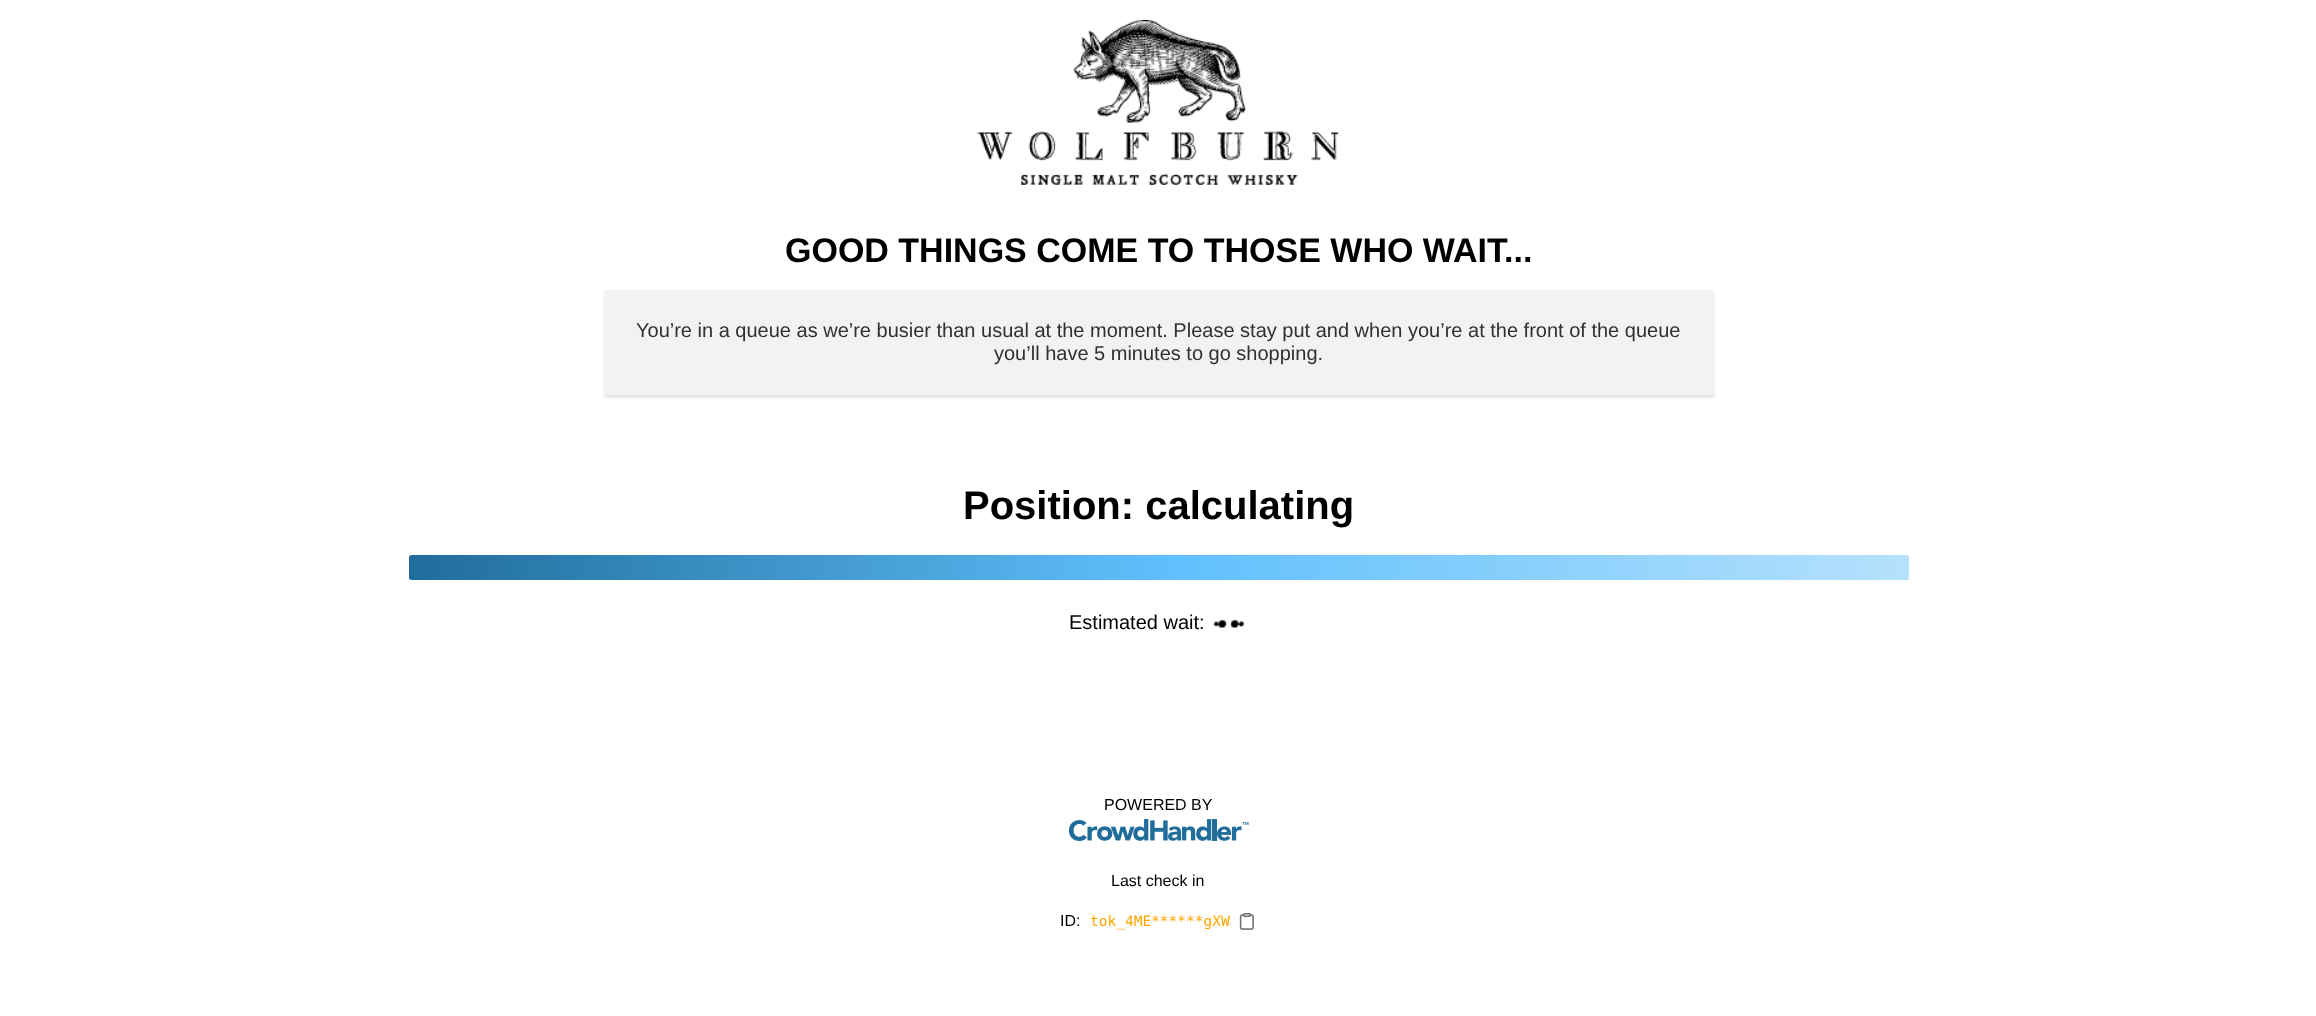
async function draw(canvas) {
  canvas.width = 2316;
  canvas.height = 1016;
  const ctx = canvas.getContext('2d');
  ctx.miterLimit = 4;
  ctx.fontKerning = 'normal';
  function label(s, x, y, font, color) {
    ctx.font = font;
    ctx.fillStyle = color;
    ctx.fillText(s, x, y);
  }
  function rect(x, y, w, h, color) {
    ctx.fillStyle = color;
    ctx.fillRect(x, y, w, h);
  }
  function roundedRect(x, y, w, h, r, color) {
    ctx.fillStyle = color;
    ctx.beginPath();
    ctx.roundRect(x, y, w, h, r);
    ctx.fill();
  }
  async function image(src, x, y, w, h) {
    const img = new Image();
    img.src = src;
    await img.decode();
    ctx.drawImage(img, x, y, w, h);
  }
  let gradient;

  rect(0, 0, 2316, 1016, '#fff');
  await image('assets/img1.png', 977, 20, 362, 165);
  label('GOOD THINGS COME TO THOSE WHO WAIT...', 785, 262, 'bold 34px Liberation Sans', '#000');
  ctx.fillStyle = '#0000001a';
  ctx.filter = 'blur(1px)';
  ctx.beginPath();
  ctx.roundRect(604, 293, 1110, 105, 2.5);
  ctx.fill();
  ctx.filter = 'none';
  roundedRect(604, 290, 1110, 105, 2.5, '#f2f2f2');
  label('You’re in a queue as we’re busier than usual at the moment. Please stay put and when you’re at the front of the queue', 636, 337, '20px Liberation Sans', '#303030');
  label('you’ll have 5 minutes to go shopping.', 994, 360, '20px Liberation Sans', '#303030');
  label('Position: calculating', 963, 519, 'bold 40px Liberation Sans', '#000');
  gradient = ctx.createLinearGradient(409, 568, 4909, 567);
  gradient.addColorStop(0, '#206d9c');
  gradient.addColorStop(0.17, '#60c0fc');
  gradient.addColorStop(0.34, '#b9e2fc');
  gradient.addColorStop(0.51, '#206d9c');
  gradient.addColorStop(0.68, '#206d9c');
  gradient.addColorStop(0.85, '#60c0fc');
  gradient.addColorStop(1, '#b9e2fc');
  ctx.fillStyle = gradient;
  ctx.beginPath();
  ctx.roundRect(409, 555, 1500, 25, 2.5);
  ctx.fill();
  label('Estimated wait:', 1069, 629, '20px Liberation Sans', '#000');
  await image('assets/img2.png', 1213, 619, 31, 9);
  label('POWERED BY', 1104, 810, '16px Liberation Sans', '#000');
  await image('assets/img3.png', 1068, 819, 181, 22);
  label('Last check in', 1111, 886, '16px Liberation Sans', '#000');
  label('ID:', 1060, 926, '16px Liberation Sans', '#000');
  label('tok_4ME******gXW', 1090, 926, '14.5px DejaVu Sans Mono', '#ffa500');
  await image('assets/img4.png', 1239, 913, 15, 17);
}

draw(document.querySelector('canvas'));
